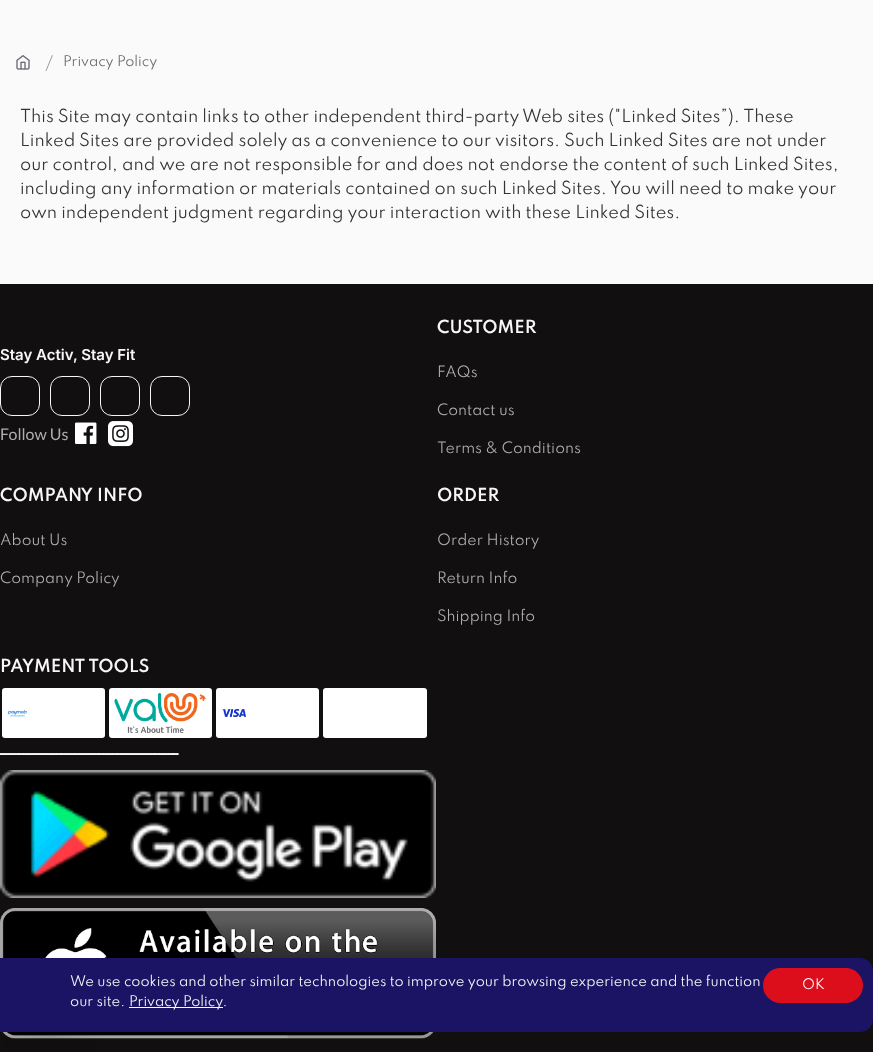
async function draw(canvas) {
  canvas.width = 873;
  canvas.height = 1052;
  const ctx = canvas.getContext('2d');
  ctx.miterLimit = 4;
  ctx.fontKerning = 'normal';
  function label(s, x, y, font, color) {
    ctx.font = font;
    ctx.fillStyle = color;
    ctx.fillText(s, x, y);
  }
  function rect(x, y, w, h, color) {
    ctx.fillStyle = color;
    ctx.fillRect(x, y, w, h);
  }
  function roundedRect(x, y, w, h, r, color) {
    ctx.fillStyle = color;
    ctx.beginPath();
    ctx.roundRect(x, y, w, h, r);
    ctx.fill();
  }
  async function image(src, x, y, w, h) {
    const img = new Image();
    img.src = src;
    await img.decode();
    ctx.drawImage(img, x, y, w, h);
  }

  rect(0, 0, 873, 1052, '#fafafa');
  await image('assets/img1.png', 16, 55, 14, 15);
  label('/', 45, 69, '16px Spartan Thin', '#989898');
  label('Privacy Policy', 63, 66, '13px Spartan Thin', '#696973');
  label('This Site may contain links to other independent third-party Web sites ("Linked Sites”). These', 20, 122, '16px Spartan Thin', '#333');
  label('Linked Sites are provided solely as a convenience to our visitors. Such Linked Sites are not under', 20, 146, '16px Spartan Thin', '#333');
  label('our control, and we are not responsible for and does not endorse the content of such Linked Sites,', 20, 170, '16px Spartan Thin', '#333');
  label('including any information or materials contained on such Linked Sites. You will need to make your', 20, 194, '16px Spartan Thin', '#333');
  label('own independent judgment regarding your interaction with these Linked Sites.', 20, 218, '16px Spartan Thin', '#333');
  rect(0, 284, 873, 768, '#110f10');
  label('Stay Activ, Stay Fit', 0, 360, '600 15px Inter', '#f7f7f7');
  ctx.beginPath();
  ctx.roundRect(0.5, 376.5, 39, 39, 11.5);
  ctx.strokeStyle = '#f7f7f7';
  ctx.stroke();
  ctx.beginPath();
  ctx.roundRect(50.5, 376.5, 39, 39, 11.5);
  ctx.stroke();
  ctx.beginPath();
  ctx.roundRect(100.5, 376.5, 39, 39, 11.5);
  ctx.stroke();
  ctx.beginPath();
  ctx.roundRect(150.5, 376.5, 39, 39, 11.5);
  ctx.stroke();
  label('Follow Us', 0, 440, '16px Lato', '#aeaeae');
  await image('assets/img2.png', 75, 422, 22, 22);
  await image('assets/img3.png', 108, 421, 25, 26);
  label('CUSTOMER', 437, 333, '600 16px Spartan Thin', '#f7f7f7');
  label('FAQs', 437, 377, '14px Spartan Thin', '#aeaeae');
  label('Contact us', 437, 415, '14px Spartan Thin', '#aeaeae');
  label('Terms & Conditions', 437, 453, '14px Spartan Thin', '#aeaeae');
  label('COMPANY INFO', 0, 501, '600 16px Spartan Thin', '#f7f7f7');
  label('About Us', 0, 545, '14px Spartan Thin', '#aeaeae');
  label('Company Policy', 0, 583, '14px Spartan Thin', '#aeaeae');
  label('ORDER', 437, 501, '600 16px Spartan Thin', '#f7f7f7');
  label('Order History', 437, 545, '14px Spartan Thin', '#aeaeae');
  label('Return Info', 437, 583, '14px Spartan Thin', '#aeaeae');
  label('Shipping Info', 437, 621, '14px Spartan Thin', '#aeaeae');
  label('PAYMENT TOOLS', 0, 672, '600 16px Spartan Thin', '#f7f7f7');
  roundedRect(2, 688, 103, 50, 3, '#fff');
  await image('assets/img4.png', 7, 710, 20, 7);
  roundedRect(109, 688, 103, 50, 3, '#fff');
  await image('assets/img5.png', 114, 693, 93, 40);
  roundedRect(216, 688, 103, 50, 3, '#fff');
  await image('assets/img6.png', 222, 709, 24, 8);
  roundedRect(323, 688, 104, 50, 3, '#fff');
  ctx.direction = 'rtl';
  label('ــــــــــــــــــــــــــــــــــــــ', 178, 755, 'bold 16px DejaVu Sans', '#f7f7f7');
  await image('assets/img7.png', 0, 770, 436, 128);
  await image('assets/img8.png', 0, 908, 436, 131);
  ctx.fillStyle = '#00000029';
  ctx.filter = 'blur(16px)';
  ctx.beginPath();
  ctx.roundRect(20, 974, 60, 60, 30);
  ctx.fill();
  ctx.filter = 'none';
  ctx.fillStyle = '#0000000f';
  ctx.filter = 'blur(3px)';
  ctx.beginPath();
  ctx.roundRect(20, 973, 60, 60, 30);
  ctx.fill();
  ctx.filter = 'none';
  ctx.fillStyle = '#1b1464';
  ctx.beginPath();
  ctx.roundRect(0, 958, 873, 74, [0, 13, 13, 0]);
  ctx.fill();
  ctx.direction = 'ltr';
  label('We use cookies and other similar technologies to improve your browsing experience and the function', 70, 986, '13px Spartan Thin', '#f7f7f7');
  label('our site.', 70, 1006, '13px Spartan Thin', '#f7f7f7');
  rect(129, 1007, 94, 1, '#fafafa');
  label('Privacy Policy.', 129, 1006, '13px Spartan Thin', '#f7f7f7');
  roundedRect(763, 968, 100, 35, 17.5, '#dd0e1c');
  label('OK', 802, 989, '13px Spartan Thin', '#f7f7f7');
}

draw(document.querySelector('canvas'));
